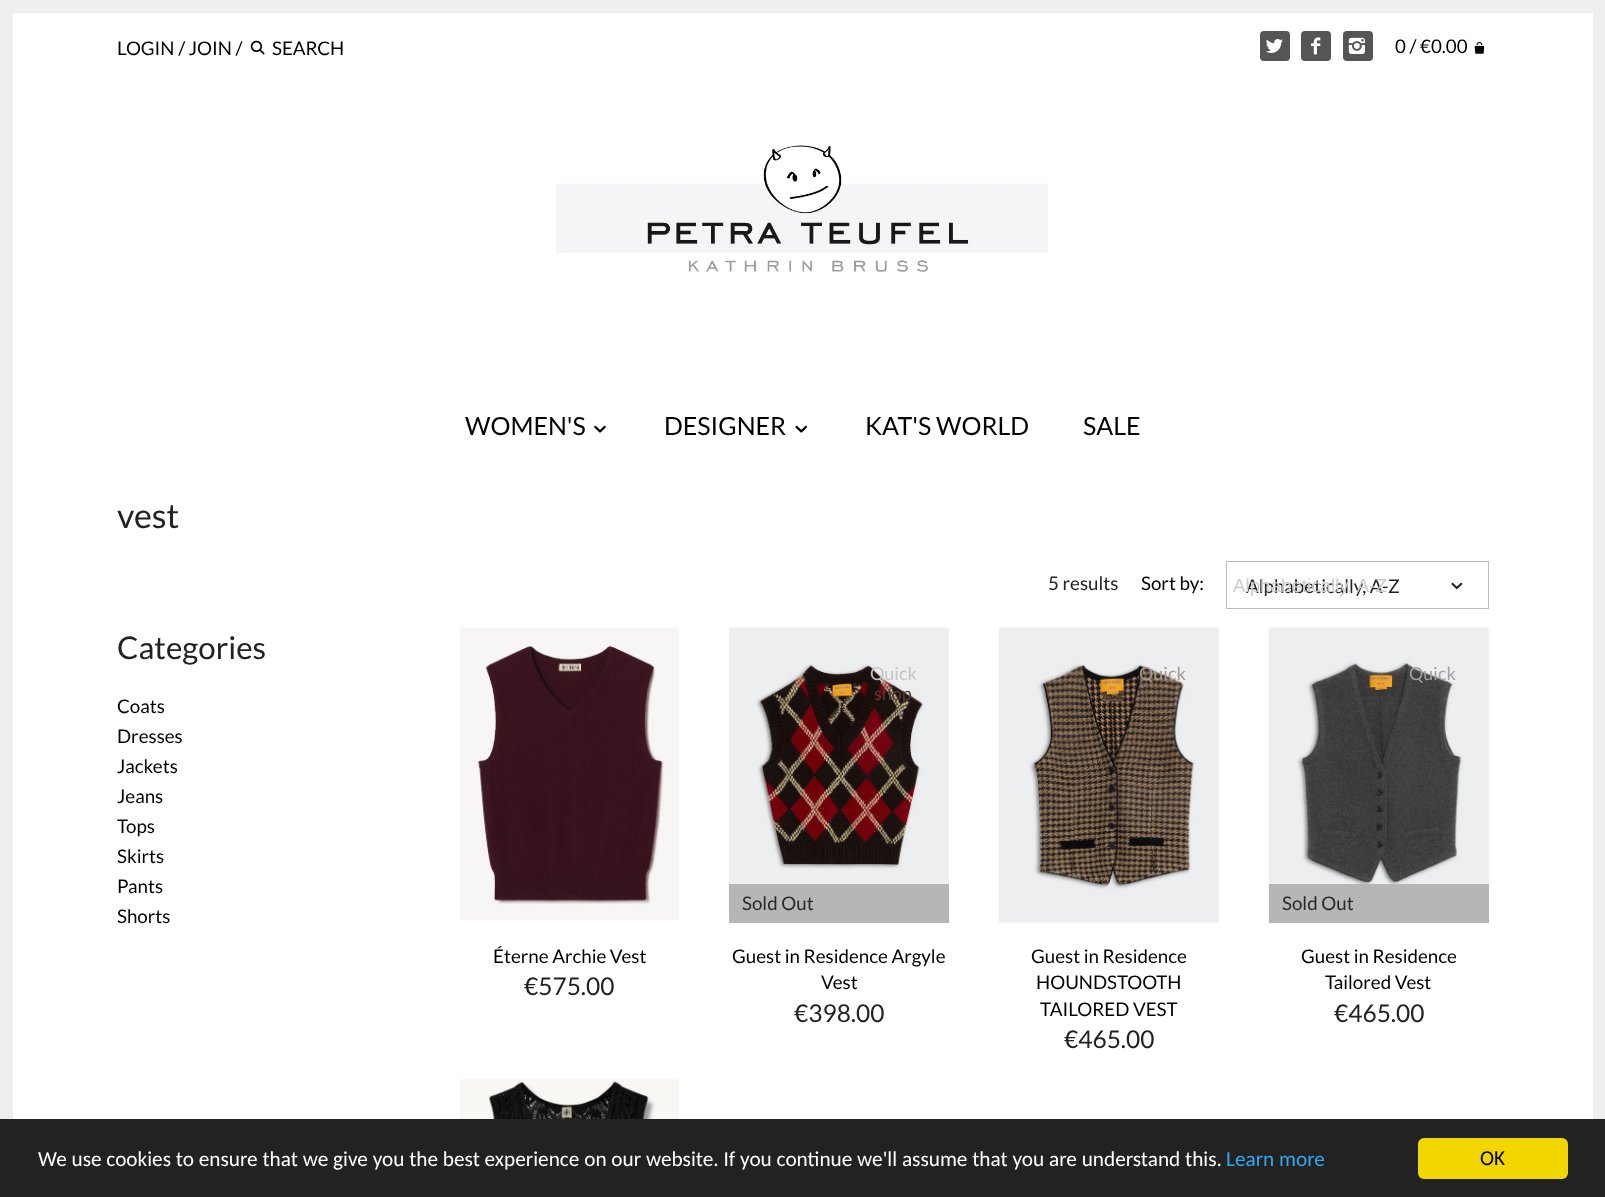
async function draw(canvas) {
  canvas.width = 1605;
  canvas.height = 1197;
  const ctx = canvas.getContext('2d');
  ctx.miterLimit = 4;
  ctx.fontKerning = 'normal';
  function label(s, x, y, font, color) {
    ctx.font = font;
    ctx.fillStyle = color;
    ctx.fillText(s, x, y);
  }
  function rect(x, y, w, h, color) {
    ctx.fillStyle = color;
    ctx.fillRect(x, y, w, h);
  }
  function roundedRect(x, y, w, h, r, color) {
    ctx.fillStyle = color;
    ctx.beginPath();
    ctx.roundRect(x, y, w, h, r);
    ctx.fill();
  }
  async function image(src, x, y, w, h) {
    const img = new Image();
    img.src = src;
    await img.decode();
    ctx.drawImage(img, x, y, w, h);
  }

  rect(0, 0, 1605, 1197, '#fff');
  ctx.strokeStyle = '#eee';
  ctx.lineWidth = 13;
  ctx.strokeRect(6.5, 6.5, 1592, 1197);
  rect(1592, 13, 1, 1106, '#fff');
  label('LOGIN / JOIN /', 117, 55, '18.75px Lato', '#000');
  await image('assets/img1.png', 250, 40, 15, 15);
  label('SEARCH', 272, 55, '18.75px Lato', '#000');
  roundedRect(1260, 31, 30, 30, 4, '#555');
  await image('assets/img2.png', 1266, 38, 17, 15);
  roundedRect(1301, 31, 30, 30, 4, '#555');
  await image('assets/img3.png', 1310, 37, 11, 18);
  roundedRect(1343, 31, 30, 30, 4, '#555');
  await image('assets/img4.png', 1348, 37, 17, 17);
  label('0 / €0.00', 1395, 53, '18.75px Lato', '#000');
  await image('assets/img5.png', 1474, 42, 11, 12);
  await image('assets/img6.png', 556, 145, 492, 128);
  label('WOMEN\'S', 465, 435, '25px Lato', '#000');
  await image('assets/img7.png', 594, 425, 12, 8);
  label('DESIGNER', 664, 435, '25px Lato', '#000');
  await image('assets/img8.png', 795, 425, 12, 8);
  label('KAT\'S WORLD', 865, 435, '25px Lato', '#000');
  label('SALE', 1083, 435, '25px Lato', '#000');
  label('vest', 117, 528, '34px Lato', '#222');
  label('5 results', 1048, 590, '18.75px Lato', '#222');
  label('Sort by:', 1141, 590, '18.75px Lato', '#000');
  ctx.strokeStyle = '#bcbcbc';
  ctx.lineWidth = 1;
  ctx.strokeRect(1226.5, 561.5, 262, 47);
  ctx.save();
  ctx.beginPath();
  ctx.rect(1246, 574, 179, 22);
  ctx.clip();
  label('Alphabetically, A-Z', 1246, 593, '18.75px Lato', '#222');
  ctx.restore();
  label('Alphabetically, A-Z', 1233, 592, '18.75px Liberation Sans', '#ccc');
  await image('assets/img9.png', 1451, 582, 12, 8);
  label('Categories', 117, 659, '31.25px Lato', '#222');
  label('Coats', 117, 713, '18.75px Lato', '#000');
  label('Dresses', 117, 743, '18.75px Lato', '#000');
  label('Jackets', 117, 773, '18.75px Lato', '#000');
  label('Jeans', 117, 803, '18.75px Lato', '#000');
  label('Tops', 117, 833, '18.75px Lato', '#000');
  label('Skirts', 117, 863, '18.75px Lato', '#000');
  label('Pants', 117, 893, '18.75px Lato', '#000');
  label('Shorts', 117, 923, '18.75px Lato', '#000');
  await image('assets/img10.png', 460, 627, 219, 293);
  label('Éterne Archie Vest', 493, 963, '18.75px Lato', '#000');
  label('€575.00', 524, 995, '24.5px Lato', '#222');
  await image('assets/img11.png', 728, 627, 221, 285);
  label('Quick', 870, 680, '18px Lato', '#c6c5c6');
  label('shop', 874, 700, '18px Lato', '#523b36');
  rect(729, 884, 220, 39, '#b6b6b6');
  label('Sold Out', 742, 910, '18.75px Lato', '#292929');
  label('Guest in Residence Argyle', 732, 963, '18.75px Lato', '#000');
  label('Vest', 821, 989, '18.75px Lato', '#000');
  label('€398.00', 794, 1022, '24.5px Lato', '#222');
  await image('assets/img12.png', 998, 627, 221, 296);
  label('Quick', 1139, 680, '18px Lato', '#a29993');
  label('Guest in Residence', 1031, 963, '18.75px Lato', '#000');
  label('HOUNDSTOOTH', 1036, 989, '18.75px Lato', '#000');
  label('TAILORED VEST', 1040, 1016, '18.75px Lato', '#000');
  label('€465.00', 1064, 1048, '24.5px Lato', '#222');
  await image('assets/img13.png', 1268, 627, 221, 293);
  label('Quick', 1409, 680, '18px Lato', '#9fa0a1');
  rect(1269, 884, 220, 39, '#b6b6b6');
  label('Sold Out', 1282, 910, '18.75px Lato', '#292929');
  label('Guest in Residence', 1301, 963, '18.75px Lato', '#000');
  label('Tailored Vest', 1325, 989, '18.75px Lato', '#000');
  label('€465.00', 1334, 1022, '24.5px Lato', '#222');
  await image('assets/img14.png', 460, 1079, 219, 40);
  rect(0, 1119, 1605, 78, '#222');
  label('We use cookies to ensure that we give you the best experience on our website. If you continue we\'ll assume that you are understand this.', 38, 1166, '21.25px Carlito', '#fff');
  label('Learn more', 1226, 1166, '21.25px Carlito', '#31a8f0');
  roundedRect(1418, 1138, 150, 41, 6, '#f1d600');
  label('OK', 1480, 1165, '21.25px Carlito', '#000');
}

draw(document.querySelector('canvas'));
